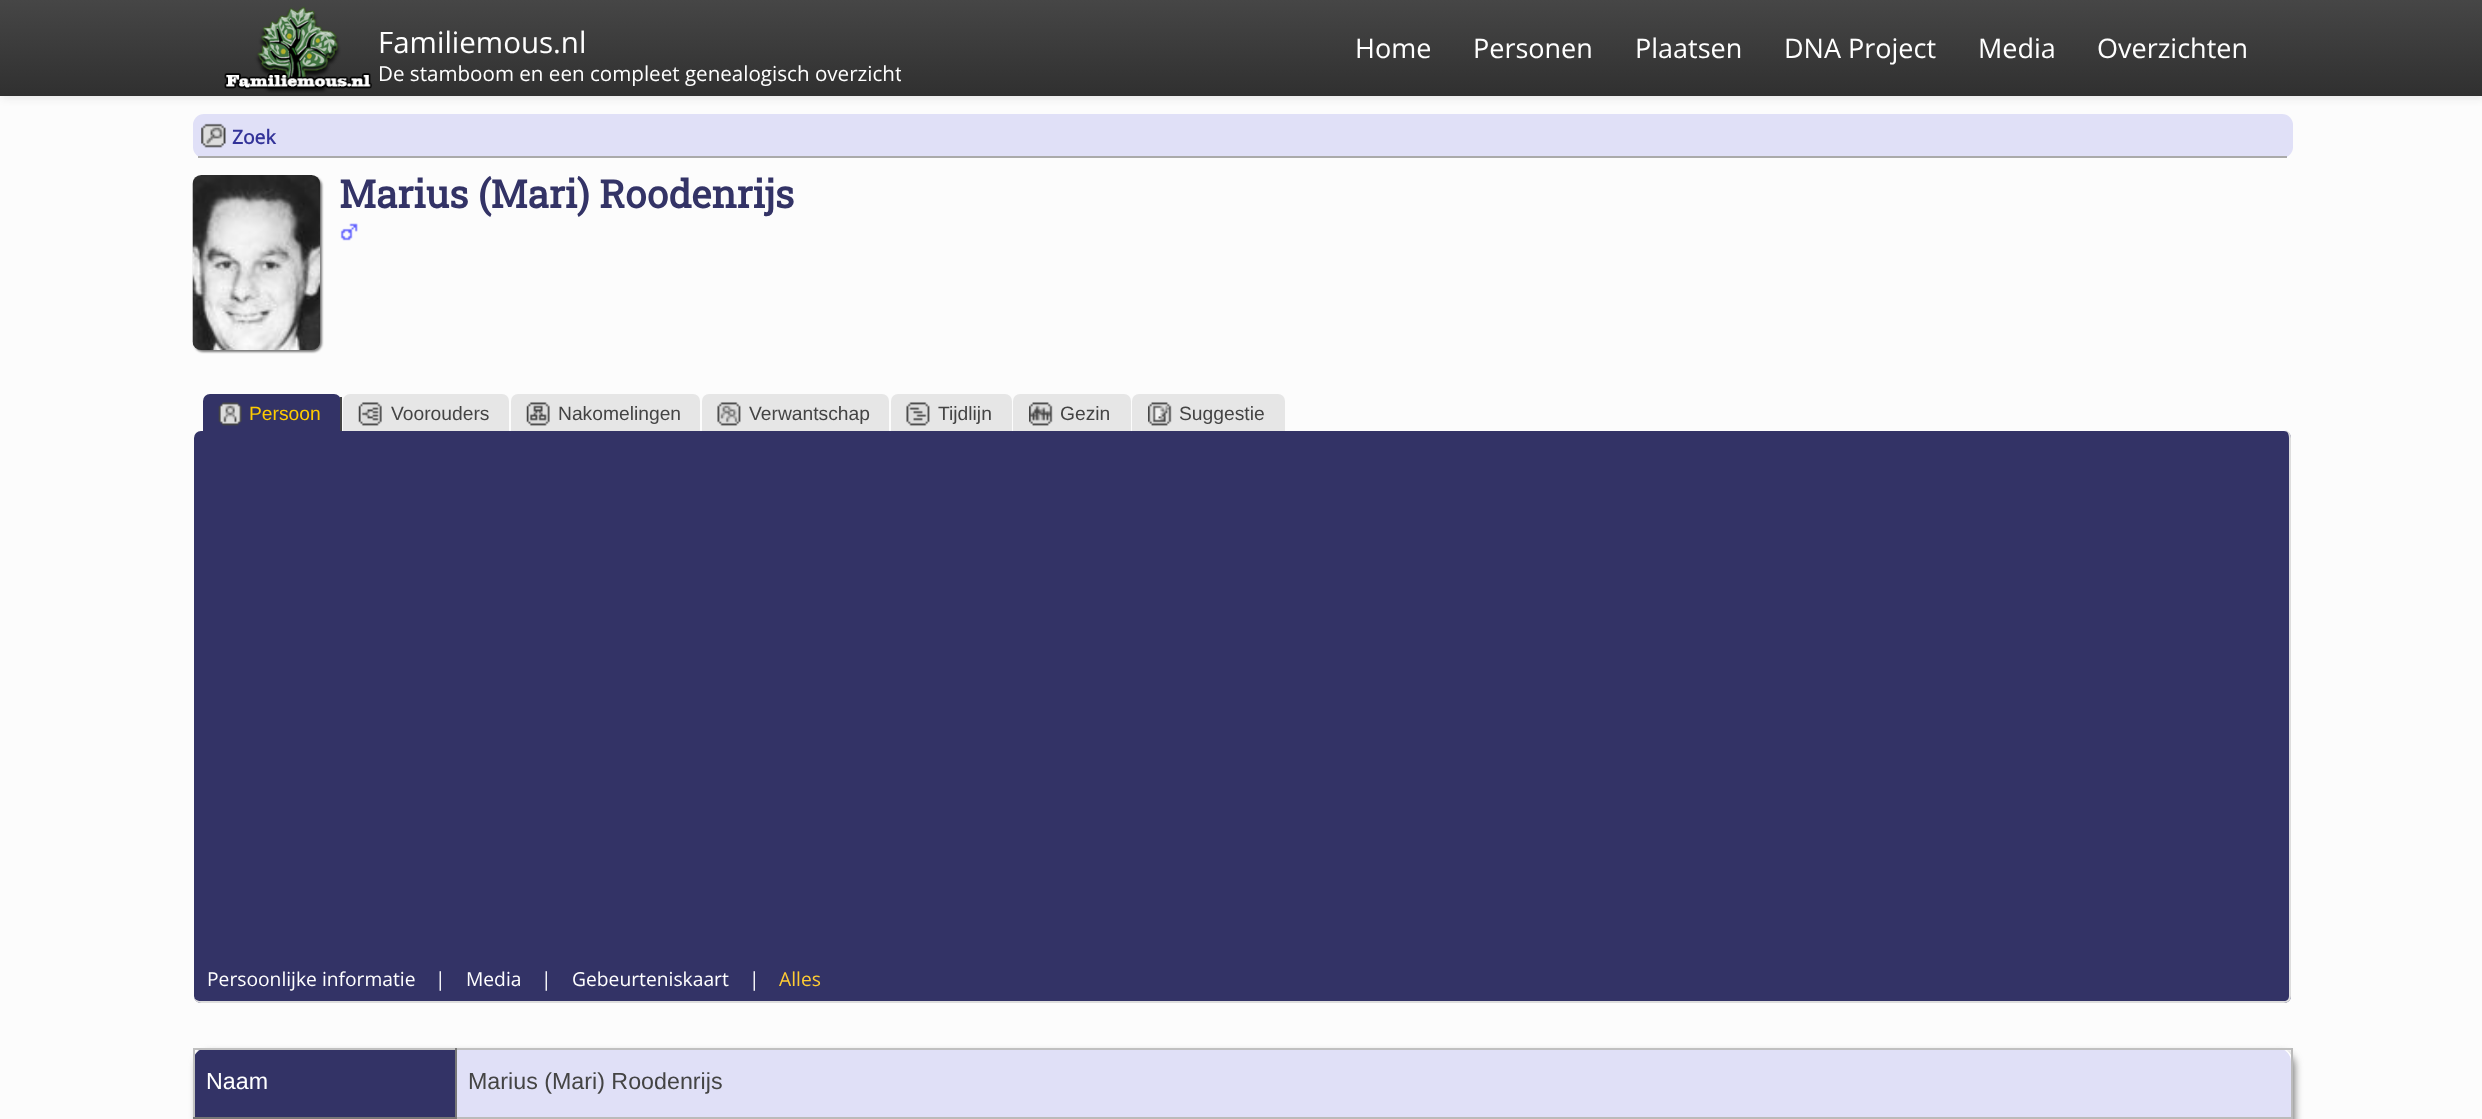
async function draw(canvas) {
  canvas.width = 2482;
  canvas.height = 1119;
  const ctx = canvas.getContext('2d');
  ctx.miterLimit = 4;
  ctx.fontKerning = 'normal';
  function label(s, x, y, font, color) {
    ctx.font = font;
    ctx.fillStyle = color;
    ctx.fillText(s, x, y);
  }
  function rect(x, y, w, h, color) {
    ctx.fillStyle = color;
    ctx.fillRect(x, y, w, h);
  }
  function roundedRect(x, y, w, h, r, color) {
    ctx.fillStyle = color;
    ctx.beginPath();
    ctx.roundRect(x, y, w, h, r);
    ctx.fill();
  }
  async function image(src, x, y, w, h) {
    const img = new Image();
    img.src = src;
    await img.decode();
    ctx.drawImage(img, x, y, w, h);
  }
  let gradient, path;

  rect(0, 0, 2482, 1119, '#fcfcfc');
  ctx.fillStyle = '#1919191a';
  ctx.filter = 'blur(4.5px)';
  ctx.beginPath();
  ctx.rect(2, 2, 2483, 96);
  ctx.fill();
  ctx.filter = 'none';
  gradient = ctx.createLinearGradient(1242, 0, 1242, 96);
  gradient.addColorStop(0, '#464646');
  gradient.addColorStop(1, '#303030');
  ctx.fillStyle = gradient;
  ctx.fillRect(0, 0, 2482, 96);
  await image('assets/img1.png', 224, 6, 148, 87);
  label('Familiemous.nl', 378, 53, '29.5px Open Sans', '#fff');
  ctx.save();
  ctx.beginPath();
  ctx.rect(219, 0, 682, 96);
  ctx.clip();
  label('De stamboom en een compleet genealogisch overzicht', 378, 81, '20.6px Open Sans', '#fff');
  ctx.restore();
  label('Home', 1355, 58, '27px Open Sans', '#fff');
  label('Personen', 1473, 58, '27px Open Sans', '#fff');
  label('Plaatsen', 1635, 58, '27px Open Sans', '#fff');
  label('DNA Project', 1784, 58, '27px Open Sans', '#fff');
  label('Media', 1978, 58, '27px Open Sans', '#fff');
  label('Overzichten', 2097, 58, '27px Open Sans', '#fff');
  roundedRect(193, 114, 2100, 44, 11, '#e0e0f7');
  rect(198, 156, 2089, 2, '#aaa');
  await image('assets/img2.png', 201, 123, 25, 25);
  label('Zoek', 232, 144, 'bold 19.25px Open Sans', '#339');
  ctx.fillStyle = '#777';
  ctx.filter = 'blur(1px)';
  ctx.beginPath();
  ctx.roundRect(194, 177, 128, 175, 9);
  ctx.fill();
  ctx.filter = 'none';
  await image('assets/img3.png', 192, 175, 129, 175);
  label('Marius (Mari) Roodenrijs', 339, 208, 'bold 38.5px Roboto Slab', '#336');
  await image('assets/img4.png', 340, 223, 18, 18);
  ctx.fillStyle = '#e6e6e6';
  ctx.beginPath();
  ctx.roundRect(343, 394, 166, 37, [7, 7, 0, 0]);
  ctx.fill();
  ctx.beginPath();
  ctx.roundRect(511, 394, 189, 37, [7, 7, 0, 0]);
  ctx.fill();
  ctx.beginPath();
  ctx.roundRect(702, 394, 187, 37, [7, 7, 0, 0]);
  ctx.fill();
  ctx.beginPath();
  ctx.roundRect(891, 394, 121, 37, [7, 7, 0, 0]);
  ctx.fill();
  ctx.beginPath();
  ctx.roundRect(1013, 394, 118, 37, [7, 7, 0, 0]);
  ctx.fill();
  ctx.beginPath();
  ctx.roundRect(1132, 394, 153, 37, [7, 7, 0, 0]);
  ctx.fill();
  roundedRect(194, 431, 2097, 572, 7, '#336');
  ctx.fillStyle = '#ddd';
  path = new Path2D('M201 430H2284C2288 430 2291 434 2291 438V996C2291 1000 2288 1003 2284 1003H201C197 1003 194 1000 194 996V438C194 434 197 430 201 430ZM201 430H2284C2287 430 2289 434 2289 438V996C2289 999 2287 1001 2284 1001H201C197 1001 194 999 194 996V438C194 434 197 430 201 430Z');
  ctx.fill(path, 'evenodd');
  ctx.fillStyle = '#336';
  ctx.beginPath();
  ctx.roundRect(203, 394, 138, 37, [7, 7, 0, 0]);
  ctx.fill();
  rect(340, 397, 2, 34, '#444');
  await image('assets/img5.png', 218, 402, 24, 24);
  label('Persoon', 249, 420, '19.25px Liberation Sans', '#fc0');
  await image('assets/img6.png', 358, 402, 24, 24);
  label('Voorouders', 391, 420, '19.25px Liberation Sans', '#444');
  await image('assets/img7.png', 526, 402, 24, 24);
  label('Nakomelingen', 558, 420, '19.25px Liberation Sans', '#444');
  await image('assets/img8.png', 717, 402, 24, 24);
  label('Verwantschap', 749, 420, '19.25px Liberation Sans', '#444');
  await image('assets/img9.png', 906, 402, 24, 24);
  label('Tijdlijn', 938, 420, '19.25px Liberation Sans', '#444');
  await image('assets/img10.png', 1029, 402, 24, 24);
  label('Gezin', 1060, 420, '19.25px Liberation Sans', '#444');
  await image('assets/img11.png', 1148, 402, 24, 24);
  label('Suggestie', 1179, 420, '19.25px Liberation Sans', '#444');
  label('Persoonlijke informatie', 207, 986, '19.25px Open Sans', '#fff');
  label('|', 435, 986, '19.25px Open Sans', '#fff');
  label('Media', 466, 986, '19.25px Open Sans', '#fff');
  label('|', 541, 986, '19.25px Open Sans', '#fff');
  label('Gebeurteniskaart', 572, 986, '19.25px Open Sans', '#fff');
  label('|', 749, 986, '19.25px Open Sans', '#fff');
  label('Alles', 779, 986, '19.25px Open Sans', '#fc3');
  ctx.fillStyle = '#666';
  ctx.filter = 'blur(4.5px)';
  ctx.beginPath();
  ctx.roundRect(198, 1054, 2096, 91, 12);
  ctx.fill();
  ctx.filter = 'none';
  roundedRect(193, 1048, 2100, 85, 14, '#fff');
  ctx.fillStyle = '#336';
  ctx.beginPath();
  ctx.roundRect(193, 1048, 262, 69, [14, 0, 0, 0]);
  ctx.fill();
  ctx.fillStyle = '#e0e0f7';
  ctx.beginPath();
  ctx.roundRect(455, 1048, 1836, 69, [0, 14, 0, 0]);
  ctx.fill();
  rect(193, 1048, 2100, 2, '#c0c0c0');
  rect(193, 1048, 2, 71, '#c0c0c0');
  rect(2291, 1048, 2, 70, '#bbb');
  rect(455, 1117, 1838, 2, '#bbb');
  rect(455, 1048, 2, 70, '#777');
  rect(193, 1117, 264, 2, '#777');
  label('Naam', 206, 1089, '23.25px Liberation Sans', '#fff');
  label('Marius (Mari) Roodenrijs', 468, 1089, '23.25px Liberation Sans', '#444');
}

draw(document.querySelector('canvas'));
